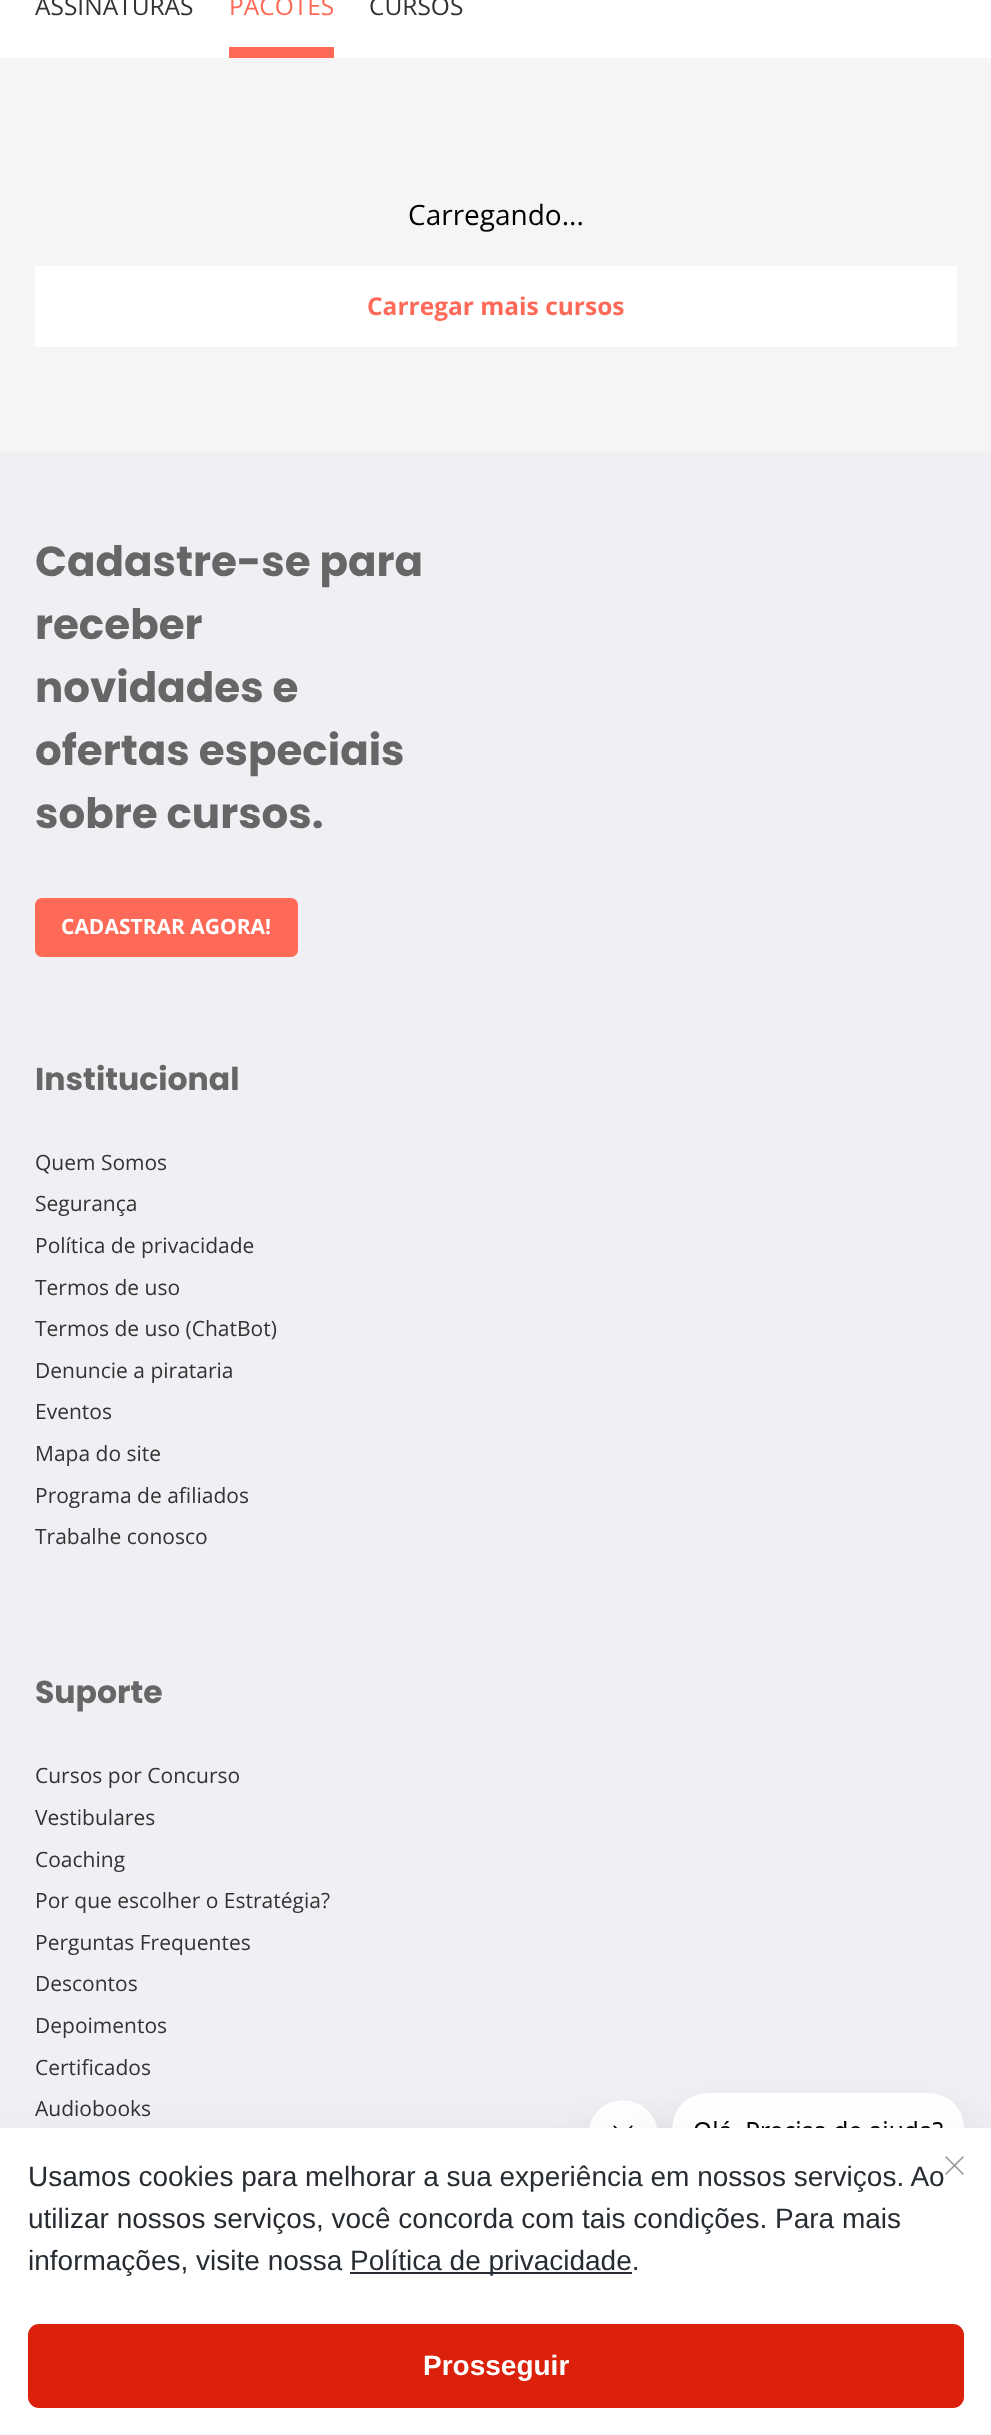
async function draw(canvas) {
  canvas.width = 991;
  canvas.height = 2435;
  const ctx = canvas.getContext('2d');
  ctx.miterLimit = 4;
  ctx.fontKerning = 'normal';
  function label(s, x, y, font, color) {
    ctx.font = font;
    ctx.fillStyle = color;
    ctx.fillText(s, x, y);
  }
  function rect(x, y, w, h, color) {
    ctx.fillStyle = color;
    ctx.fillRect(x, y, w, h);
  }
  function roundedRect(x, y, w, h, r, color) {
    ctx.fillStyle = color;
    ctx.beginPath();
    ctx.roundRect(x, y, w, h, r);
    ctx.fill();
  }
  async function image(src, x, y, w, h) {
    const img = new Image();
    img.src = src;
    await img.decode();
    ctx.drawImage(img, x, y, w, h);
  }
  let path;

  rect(0, 0, 991, 2435, '#fff');
  label('ASSINATURAS', 35, 15, '24.5px Open Sans', '#333');
  label('PACOTES', 229, 15, '24.5px Open Sans', '#ff6a58');
  rect(229, 47, 105, 11, '#ff6a58');
  label('CURSOS', 369, 15, '24.5px Open Sans', '#333');
  rect(0, 58, 991, 394, '#f5f5f5');
  label('Carregando...', 408, 225, '28px Open Sans', '#000');
  rect(35, 266, 922, 81, '#fff');
  label('Carregar mais cursos', 367, 315, 'bold 24.5px Open Sans', '#ff6a58');
  rect(0, 452, 991, 1676, '#f0eff3');
  label('Cadastre-se para', 35, 576, 'bold 42px Poppins', '#666');
  label('receber', 35, 639, 'bold 42px Poppins', '#666');
  label('novidades e', 35, 702, 'bold 42px Poppins', '#666');
  label('ofertas especiais', 35, 765, 'bold 42px Poppins', '#666');
  label('sobre cursos.', 35, 828, 'bold 42px Poppins', '#666');
  roundedRect(35, 898, 263, 59, 7, '#ff6a58');
  label('CADASTRAR AGORA!', 61, 934, 'bold 21px Open Sans', '#fff');
  label('Institucional', 35, 1090, 'bold 31.5px Poppins', '#666');
  label('Quem Somos', 35, 1170, '21px Open Sans', '#333');
  label('Segurança', 35, 1211, '21px Open Sans', '#333');
  label('Política de privacidade', 35, 1253, '21px Open Sans', '#333');
  label('Termos de uso', 35, 1295, '21px Open Sans', '#333');
  label('Termos de uso (ChatBot)', 35, 1336, '21px Open Sans', '#333');
  label('Denuncie a pirataria', 35, 1378, '21px Open Sans', '#333');
  label('Eventos', 35, 1419, '21px Open Sans', '#333');
  label('Mapa do site', 35, 1461, '21px Open Sans', '#333');
  label('Programa de afiliados', 35, 1503, '21px Open Sans', '#333');
  label('Trabalhe conosco', 35, 1544, '21px Open Sans', '#333');
  label('Suporte', 35, 1703, 'bold 31.5px Poppins', '#666');
  label('Cursos por Concurso', 35, 1783, '21px Open Sans', '#333');
  label('Vestibulares', 35, 1825, '21px Open Sans', '#333');
  label('Coaching', 35, 1867, '21px Open Sans', '#333');
  label('Por que escolher o Estratégia?', 35, 1908, '21px Open Sans', '#333');
  label('Perguntas Frequentes', 35, 1950, '21px Open Sans', '#333');
  label('Descontos', 35, 1991, '21px Open Sans', '#333');
  label('Depoimentos', 35, 2033, '21px Open Sans', '#333');
  label('Certificados', 35, 2075, '21px Open Sans', '#333');
  label('Audiobooks', 35, 2116, '21px Open Sans', '#333');
  ctx.fillStyle = '#17494d26';
  ctx.filter = 'blur(26px)';
  ctx.beginPath();
  ctx.roundRect(588, 2135, 70, 70, 35);
  ctx.fill();
  ctx.filter = 'none';
  await image('assets/img2.png', 588, 2100, 70, 28);
  ctx.filter = 'blur(26px)';
  ctx.beginPath();
  ctx.roundRect(672, 2128, 292, 77, 35);
  ctx.fill();
  ctx.filter = 'none';
  await image('assets/img1.png', 672, 2093, 292, 35);
  ctx.fillStyle = '#363d4d26';
  ctx.filter = 'blur(28px)';
  ctx.beginPath();
  ctx.rect(9, 2156, 975, 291);
  ctx.fill();
  ctx.filter = 'none';
  rect(0, 2128, 991, 307, '#fff');
  label('Usamos cookies para melhorar a sua experiência em nossos serviços. Ao', 28, 2186, '28px Liberation Sans', '#262c31');
  label('utilizar nossos serviços, você concorda com tais condições. Para mais', 28, 2228, '28px Liberation Sans', '#262c31');
  label('informações, visite nossa', 28, 2270, '28px Liberation Sans', '#262c31');
  rect(350, 2272, 282, 2, '#262c31');
  label('Política de privacidade.', 350, 2270, '28px Liberation Sans', '#262c31');
  roundedRect(28, 2324, 936, 84, 11, '#dc210b');
  label('Prosseguir', 423, 2375, 'bold 28px Liberation Sans', '#fff');
  path = new Path2D('M946 2157L963 2174M963 2157L946 2174');
  ctx.strokeStyle = '#939698';
  ctx.lineWidth = 1.6;
  ctx.lineCap = 'round';
  ctx.lineJoin = 'round';
  ctx.stroke(path);
}

draw(document.querySelector('canvas'));
